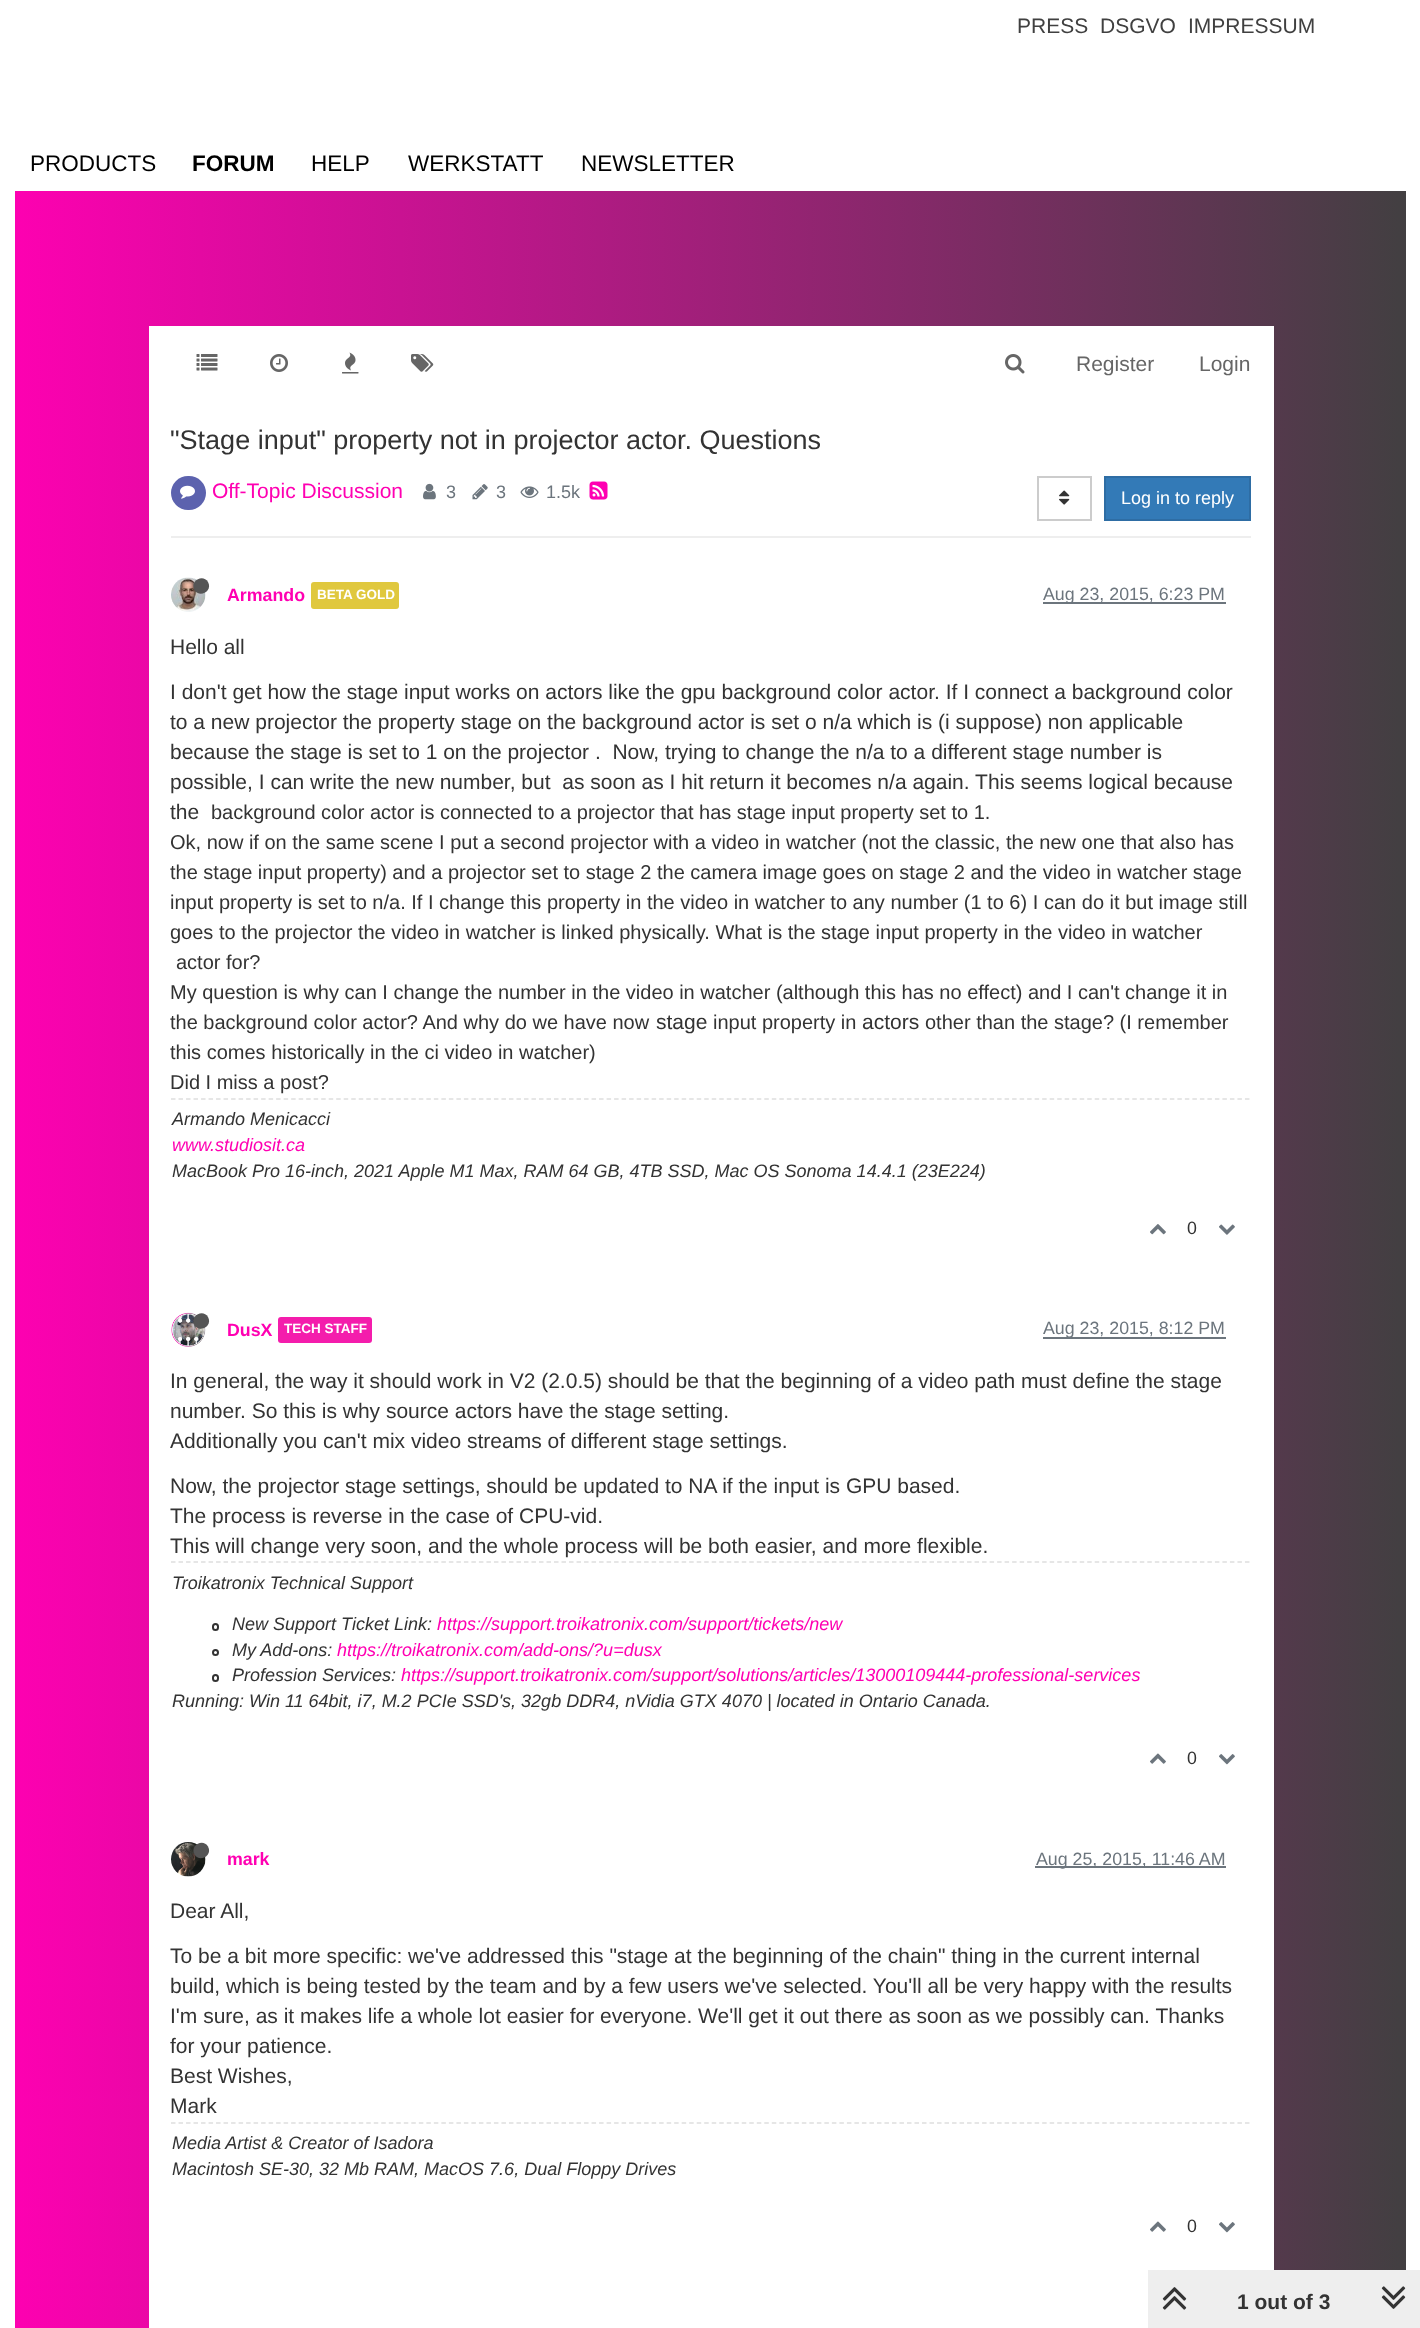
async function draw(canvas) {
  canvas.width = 1420;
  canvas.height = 2328;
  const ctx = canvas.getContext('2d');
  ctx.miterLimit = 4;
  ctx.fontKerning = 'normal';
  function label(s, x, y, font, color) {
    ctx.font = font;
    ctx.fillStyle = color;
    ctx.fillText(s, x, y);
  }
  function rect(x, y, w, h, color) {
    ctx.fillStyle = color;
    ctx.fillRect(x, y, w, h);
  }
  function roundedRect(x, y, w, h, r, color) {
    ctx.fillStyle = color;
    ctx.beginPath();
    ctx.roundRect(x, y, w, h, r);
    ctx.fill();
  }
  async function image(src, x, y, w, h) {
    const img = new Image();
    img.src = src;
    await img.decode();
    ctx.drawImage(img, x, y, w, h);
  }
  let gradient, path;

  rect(0, 0, 1420, 2328, '#fff');
  gradient = ctx.createLinearGradient(0, 1164, 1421, 1164);
  gradient.addColorStop(0, '#ff00b2');
  gradient.addColorStop(1, '#404040');
  ctx.fillStyle = gradient;
  ctx.fillRect(15, 191, 1391, 2137);
  label('PRESS', 1017, 33, '21px Liberation Sans', '#404040');
  label('DSGVO', 1100, 33, '21px Liberation Sans', '#404040');
  label('IMPRESSUM', 1188, 33, '21px Liberation Sans', '#404040');
  label('PRODUCTS', 30, 171, '22.5px Liberation Sans', '#000');
  label('FORUM', 192, 171, 'bold 22.5px Liberation Sans', '#000');
  label('HELP', 311, 171, '22.5px Liberation Sans', '#000');
  label('WERKSTATT', 408, 171, '22.5px Liberation Sans', '#000');
  label('NEWSLETTER', 581, 171, '22.5px Liberation Sans', '#000');
  rect(149, 326, 1125, 2002, '#fff');
  await image('assets/img1.png', 196, 354, 22, 17);
  await image('assets/img2.png', 270, 354, 18, 18);
  await image('assets/img3.png', 342, 352, 17, 22);
  await image('assets/img4.png', 411, 354, 23, 18);
  await image('assets/img5.png', 1005, 354, 20, 20);
  label('Register', 1076, 371, '21px Liberation Sans', '#666');
  label('Login', 1199, 371, '21px Liberation Sans', '#666');
  label('"Stage input" property not in projector actor. Questions', 170, 449, '27px Liberation Sans', '#333');
  rect(171, 536, 1080, 2, '#eee');
  roundedRect(171, 476, 35, 34, 17, '#5c62ae');
  await image('assets/img6.png', 180, 485, 15, 14);
  label('Off-Topic Discussion', 212, 498, '21px Liberation Sans', '#ff00b2');
  await image('assets/img7.png', 423, 483, 13, 17);
  label('3', 446, 498, '18px Liberation Sans', '#6c757d');
  await image('assets/img8.png', 472, 484, 16, 16);
  label('3', 496, 498, '18px Liberation Sans', '#6c757d');
  await image('assets/img9.png', 520, 486, 19, 12);
  label('1.5k', 546, 498, '18px Liberation Sans', '#6c757d');
  await image('assets/img10.png', 589, 481, 19, 19);
  ctx.strokeStyle = '#ccc';
  ctx.lineWidth = 2;
  ctx.strokeRect(1038, 477, 53, 43);
  await image('assets/img11.png', 1059, 490, 11, 15);
  ctx.fillStyle = '#337ab7';
  ctx.beginPath();
  ctx.rect(1105, 477, 145, 43);
  ctx.fill();
  ctx.strokeStyle = '#2e6da4';
  ctx.stroke();
  label('Log in to reply', 1121, 504, '18px Liberation Sans', '#fff');
  await image('assets/img12.png', 171, 577, 35, 35);
  ctx.fillStyle = '#555';
  path = new Path2D('M208 582C213 591 199.5 598.5 194.5 590C189.5 581 203 573.5 208 582Z');
  ctx.fill(path);
  label('Armando', 227, 601, 'bold 17.8px Liberation Sans', '#ff00b2');
  roundedRect(311, 582, 88, 27, 3, '#e0c83e');
  label('BETA GOLD', 317, 599, 'bold 13.5px Liberation Sans', '#fff');
  rect(1043, 602, 183, 2, '#6c757d');
  label('Aug 23, 2015, 6:23 PM', 1043, 600, '17.8px Liberation Sans', '#6c757d');
  label('Hello all', 170, 654, '21px Liberation Sans', '#333');
  label('I don\'t get how the stage input works on actors like the gpu background color actor. If I connect a background color', 170, 699, '21px Liberation Sans', '#333');
  label('to a new projector the property stage on the background actor is set o n/a which is (i suppose) non applicable', 170, 729, '21px Liberation Sans', '#333');
  label('because the stage is set to 1 on the projector .  Now, trying to change the n/a to a different stage number is', 170, 759, '21px Liberation Sans', '#333');
  label('possible, I can write the new number, but  as soon as I hit return it becomes n/a again. This seems logical because', 170, 789, '21px Liberation Sans', '#333');
  label('the', 170, 819, '21px Liberation Sans', '#333');
  label('background color actor is connected to a projector that has stage input property set to 1.', 211, 819, '20px Liberation Sans', '#333');
  label('Ok, now if on the same scene I put a second projector with a video in watcher (not the classic, the new one that also has', 170, 849, '20px Liberation Sans', '#333');
  label('the stage input property) and a projector set to stage 2 the camera image goes on stage 2 and the video in watcher stage', 170, 879, '20px Liberation Sans', '#333');
  label('input property is set to n/a. If I change this property in the video in watcher to any number (1 to 6) I', 170, 909, '20px Liberation Sans', '#333');
  label('can do it but image still', 1044, 909, '20px Liberation Sans', '#333');
  label('goes to the projector the video in watcher is linked physically. What is the stage input property in the video in watcher', 170, 939, '20px Liberation Sans', '#333');
  label('actor for?', 176, 969, '20px Liberation Sans', '#333');
  label('My question is why can I change the number in the video in watcher (although this has no effect) and I can\'t change it in', 170, 999, '20px Liberation Sans', '#333');
  label('the background color actor? And why do we have now', 170, 1029, '20px Liberation Sans', '#333');
  label('stage', 656, 1029, '21px Liberation Sans', '#333');
  label('input property in', 713, 1029, '20px Liberation Sans', '#333');
  label('actors', 862, 1029, '21px Liberation Sans', '#333');
  label('other than the stage? (I remember', 925, 1029, '20px Liberation Sans', '#333');
  label('this comes historically in the ci video in watcher)', 170, 1059, '20px Liberation Sans', '#333');
  label('Did I miss a post?', 170, 1089, '20px Liberation Sans', '#333');
  path = new Path2D('M171 1099H1251');
  ctx.strokeStyle = '#dedede';
  ctx.lineWidth = 1.5;
  ctx.setLineDash([4.5, 3.01]);
  ctx.stroke(path);
  label('Armando Menicacci', 172, 1125, 'italic 18px Liberation Sans', '#333');
  label('www.studiosit.ca', 172, 1151, 'italic 18px Liberation Sans', '#ff00b2');
  label('MacBook Pro 16-inch, 2021 Apple M1 Max, RAM 64 GB, 4TB SSD, Mac OS Sonoma 14.4.1 (23E224)', 172, 1177, 'italic 18px Liberation Sans', '#333');
  await image('assets/img13.png', 1150, 1224, 16, 11);
  label('0', 1187, 1234, '17.8px Liberation Sans', '#333');
  await image('assets/img14.png', 1219, 1224, 16, 11);
  await image('assets/img15.png', 171, 1312, 35, 35);
  ctx.fillStyle = '#555';
  path = new Path2D('M208 1317C213 1326 199.5 1333.5 194.5 1325C189.5 1316 203 1308.5 208 1317Z');
  ctx.fill(path);
  label('DusX', 227, 1336, 'bold 17.8px Liberation Sans', '#ff00b2');
  roundedRect(278, 1317, 94, 26, 3, '#f41dac');
  label('TECH STAFF', 284, 1333, 'bold 13.5px Liberation Sans', '#fff');
  rect(1043, 1337, 183, 2, '#6c757d');
  label('Aug 23, 2015, 8:12 PM', 1043, 1334, '17.8px Liberation Sans', '#6c757d');
  label('In general, the way it should work in V2 (2.0.5) should be that the beginning of a video path must define the stage', 170, 1388, '21px Liberation Sans', '#333');
  label('number. So this is why source actors have the stage setting.', 170, 1418, '21px Liberation Sans', '#333');
  label('Additionally you can\'t mix video streams of different stage settings.', 170, 1448, '21px Liberation Sans', '#333');
  label('Now, the projector stage settings, should be updated to NA if the input is GPU based.', 170, 1493, '21px Liberation Sans', '#333');
  label('The process is reverse in the case of CPU-vid.', 170, 1523, '21px Liberation Sans', '#333');
  label('This will change very soon, and the whole process will be both easier, and more flexible.', 170, 1553, '21px Liberation Sans', '#333');
  path = new Path2D('M171 1562H1251');
  ctx.stroke(path);
  label('Troikatronix Technical Support', 172, 1589, 'italic 18px Liberation Sans', '#333');
  ctx.beginPath();
  ctx.roundRect(213, 1624, 5, 6, 2.5);
  ctx.strokeStyle = '#333';
  ctx.lineWidth = 2;
  ctx.setLineDash([]);
  ctx.stroke();
  label('New Support Ticket Link:', 232, 1630, 'italic 18px Liberation Sans', '#333');
  label('https://support.troikatronix.com/support/tickets/new', 437, 1630, 'italic 18px Liberation Sans', '#ff00b2');
  ctx.beginPath();
  ctx.arc(215.5, 1652.5, 2.5, 0, 2 * Math.PI);
  ctx.stroke();
  label('My Add-ons:', 232, 1656, 'italic 18px Liberation Sans', '#333');
  label('https://troikatronix.com/add-ons/?u=dusx', 337, 1656, 'italic 18px Liberation Sans', '#ff00b2');
  ctx.beginPath();
  ctx.roundRect(213, 1675, 5, 6, 2.5);
  ctx.stroke();
  label('Profession Services:', 232, 1681, 'italic 18px Liberation Sans', '#333');
  label('https://support.troikatronix.com/support/solutions/articles/13000109444-professional-services', 401, 1681, 'italic 18px Liberation Sans', '#ff00b2');
  label('Running: Win 11 64bit, i7, M.2 PCIe SSD\'s, 32gb DDR4, nVidia GTX 4070 | located in Ontario Canada.', 172, 1707, 'italic 18px Liberation Sans', '#333');
  await image('assets/img16.png', 1150, 1753, 16, 11);
  label('0', 1187, 1764, '17.8px Liberation Sans', '#333');
  await image('assets/img17.png', 1219, 1754, 16, 11);
  await image('assets/img18.png', 171, 1842, 35, 35);
  ctx.fillStyle = '#555';
  path = new Path2D('M208 1846.5C213 1855.5 199.5 1863 194.5 1854.5C189.5 1845.5 203 1838 208 1846.5Z');
  ctx.fill(path);
  label('mark', 227, 1865, 'bold 17.8px Liberation Sans', '#ff00b2');
  rect(1035, 1866, 191, 2, '#6c757d');
  label('Aug 25, 2015, 11:46 AM', 1036, 1865, '17.8px Liberation Sans', '#6c757d');
  label('Dear All,', 170, 1918, '21px Liberation Sans', '#333');
  label('To be a bit more specific: we\'ve addressed this "stage at the beginning of the chain" thing in the current internal', 170, 1963, '21px Liberation Sans', '#333');
  label('build, which is being tested by the team and by a few users we\'ve selected. You\'ll all be very happy with the results', 170, 1993, '21px Liberation Sans', '#333');
  label('I\'m sure, as it makes life a whole lot easier for everyone. We\'ll get it out there as soon as we possibly can. Thanks', 170, 2023, '21px Liberation Sans', '#333');
  label('for your patience.', 170, 2053, '21px Liberation Sans', '#333');
  label('Best Wishes,', 170, 2083, '21px Liberation Sans', '#333');
  label('Mark', 170, 2113, '21px Liberation Sans', '#333');
  path = new Path2D('M171 2123H1251');
  ctx.strokeStyle = '#dedede';
  ctx.lineWidth = 1.5;
  ctx.setLineDash([4.5, 3.01]);
  ctx.stroke(path);
  label('Media Artist & Creator of Isadora', 172, 2149, 'italic 18px Liberation Sans', '#333');
  label('Macintosh SE-30, 32 Mb RAM, MacOS 7.6, Dual Floppy Drives', 172, 2175, 'italic 18px Liberation Sans', '#333');
  await image('assets/img16.png', 1150, 2221, 16, 11);
  label('0', 1187, 2232, '17.8px Liberation Sans', '#333');
  await image('assets/img17.png', 1219, 2222, 16, 11);
  rect(1148, 2270, 272, 58, '#eee');
  await image('assets/img19.png', 1162, 2287, 25, 23);
  label('1 out of 3', 1237, 2309, 'bold 21px Liberation Sans', '#333');
  await image('assets/img20.png', 1381, 2286, 25, 23);
}

draw(document.querySelector('canvas'));
